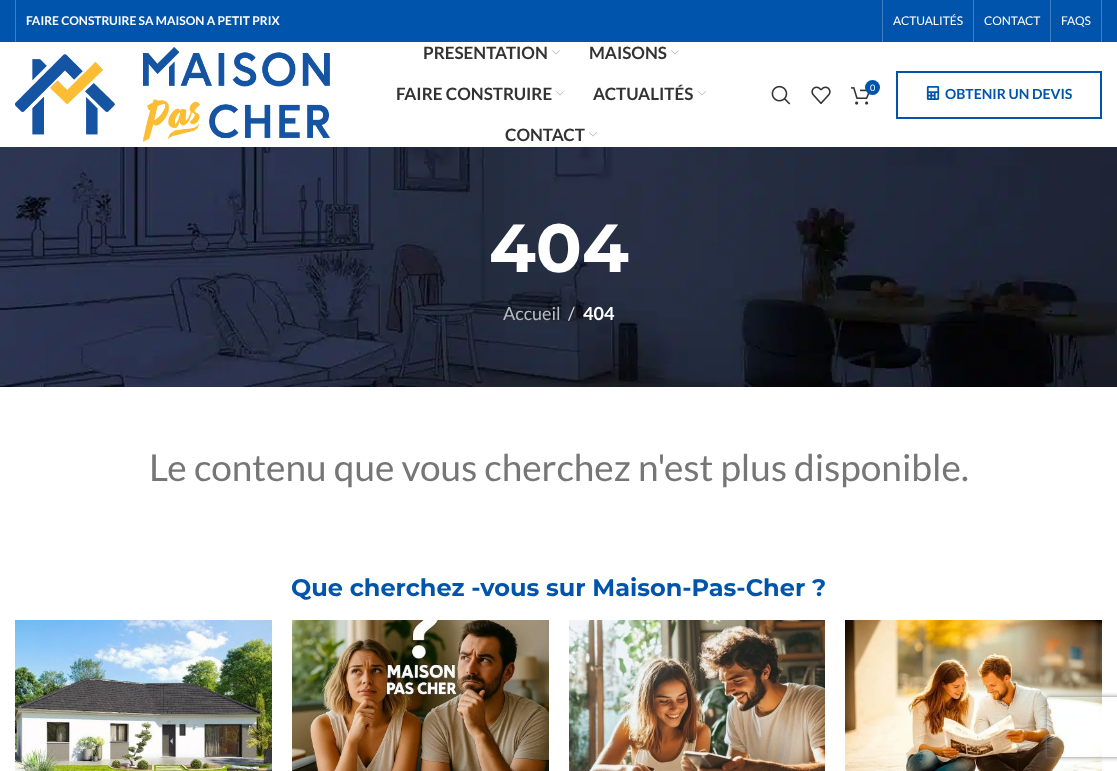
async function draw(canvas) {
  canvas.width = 1117;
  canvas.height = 771;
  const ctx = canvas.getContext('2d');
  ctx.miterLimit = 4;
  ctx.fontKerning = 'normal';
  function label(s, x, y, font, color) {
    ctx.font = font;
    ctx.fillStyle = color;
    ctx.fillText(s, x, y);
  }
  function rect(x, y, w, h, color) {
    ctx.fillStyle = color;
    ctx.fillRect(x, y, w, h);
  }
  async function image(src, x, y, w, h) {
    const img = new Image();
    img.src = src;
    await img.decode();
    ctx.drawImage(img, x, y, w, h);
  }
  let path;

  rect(0, 0, 1117, 771, '#fff');
  rect(0, 0, 1117, 42, '#0054ac');
  rect(15, 0, 1, 42, '#407fc1');
  label('FAIRE CONSTRUIRE SA MAISON A PETIT PRIX', 26, 25, 'bold 12px Lato', '#fff');
  rect(882, 0, 1, 42, '#407fc1');
  label('ACTUALITÉS', 893, 25, '12px Lato', '#fff');
  rect(973, 0, 1, 42, '#407fc1');
  label('CONTACT', 984, 25, '12px Lato', '#fff');
  rect(1050, 0, 1, 42, '#407fc1');
  label('FAQS', 1061, 25, '12px Lato', '#fff');
  rect(1101, 0, 1, 42, '#407fc1');
  await image('assets/img1.png', 15, 47, 315, 95);
  label('PRESENTATION', 423, 59, 'bold 17px Lato', '#333');
  await image('assets/img2.png', 552, 50, 8, 5);
  label('MAISONS', 589, 59, 'bold 17px Lato', '#333');
  await image('assets/img2.png', 671, 50, 8, 5);
  label('FAIRE CONSTRUIRE', 396, 100, 'bold 17px Lato', '#333');
  await image('assets/img2.png', 556, 91, 8, 5);
  label('ACTUALITÉS', 593, 100, 'bold 17px Lato', '#333');
  await image('assets/img2.png', 698, 91, 8, 5);
  label('CONTACT', 505, 141, 'bold 17px Lato', '#333');
  await image('assets/img2.png', 589, 132, 8, 5);
  await image('assets/img3.png', 771, 85, 20, 20);
  await image('assets/img4.png', 811, 86, 20, 18);
  await image('assets/img5.png', 851, 87, 19, 18);
  ctx.fillStyle = '#0054ac';
  ctx.beginPath();
  ctx.arc(872.5, 87.5, 7.5, 0, 2 * Math.PI);
  ctx.fill();
  label('0', 870, 91, '9px Lato', '#fff');
  ctx.strokeStyle = '#0054ac';
  ctx.lineWidth = 2;
  ctx.strokeRect(897, 72, 204, 46);
  await image('assets/img6.png', 926, 86, 14, 14);
  label('OBTENIR UN DEVIS', 945, 99, 'bold 14px Lato', '#0054ac');
  await image('assets/img7.png', 0, 147, 1117, 240);
  label('404', 489, 272, 'bold 68px Montserrat', '#fff');
  label('Accueil', 503, 320, '18px Lato', '#babcc1');
  label('/', 568, 320, '18px Lato', '#d2d3d7');
  label('404', 583, 320, 'bold 18px Lato', '#fff');
  label('Le contenu que vous cherchez n\'est plus disponible.', 149, 481, '37px Lato', '#767676');
  label('Que cherchez -vous sur Maison-Pas-Cher ?', 291, 596, 'bold 24px Montserrat', '#0054ac');
  await image('assets/img8.png', 15, 620, 257, 151);
  await image('assets/img9.png', 292, 620, 257, 151);
  await image('assets/img10.png', 569, 620, 256, 151);
  await image('assets/img11.png', 845, 620, 257, 151);
  ctx.save();
  path = new Path2D('M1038 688H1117V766H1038ZM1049 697H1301C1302 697 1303 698 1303 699V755C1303 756 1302 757 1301 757H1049C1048 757 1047 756 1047 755V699C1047 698 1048 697 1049 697Z');
  ctx.clip(path, 'evenodd');
  ctx.fillStyle = '#808080';
  ctx.filter = 'blur(2.5px)';
  ctx.beginPath();
  ctx.roundRect(1047, 697, 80, 60, 2);
  ctx.fill();
  ctx.filter = 'none';
  ctx.restore();
}

draw(document.querySelector('canvas'));
